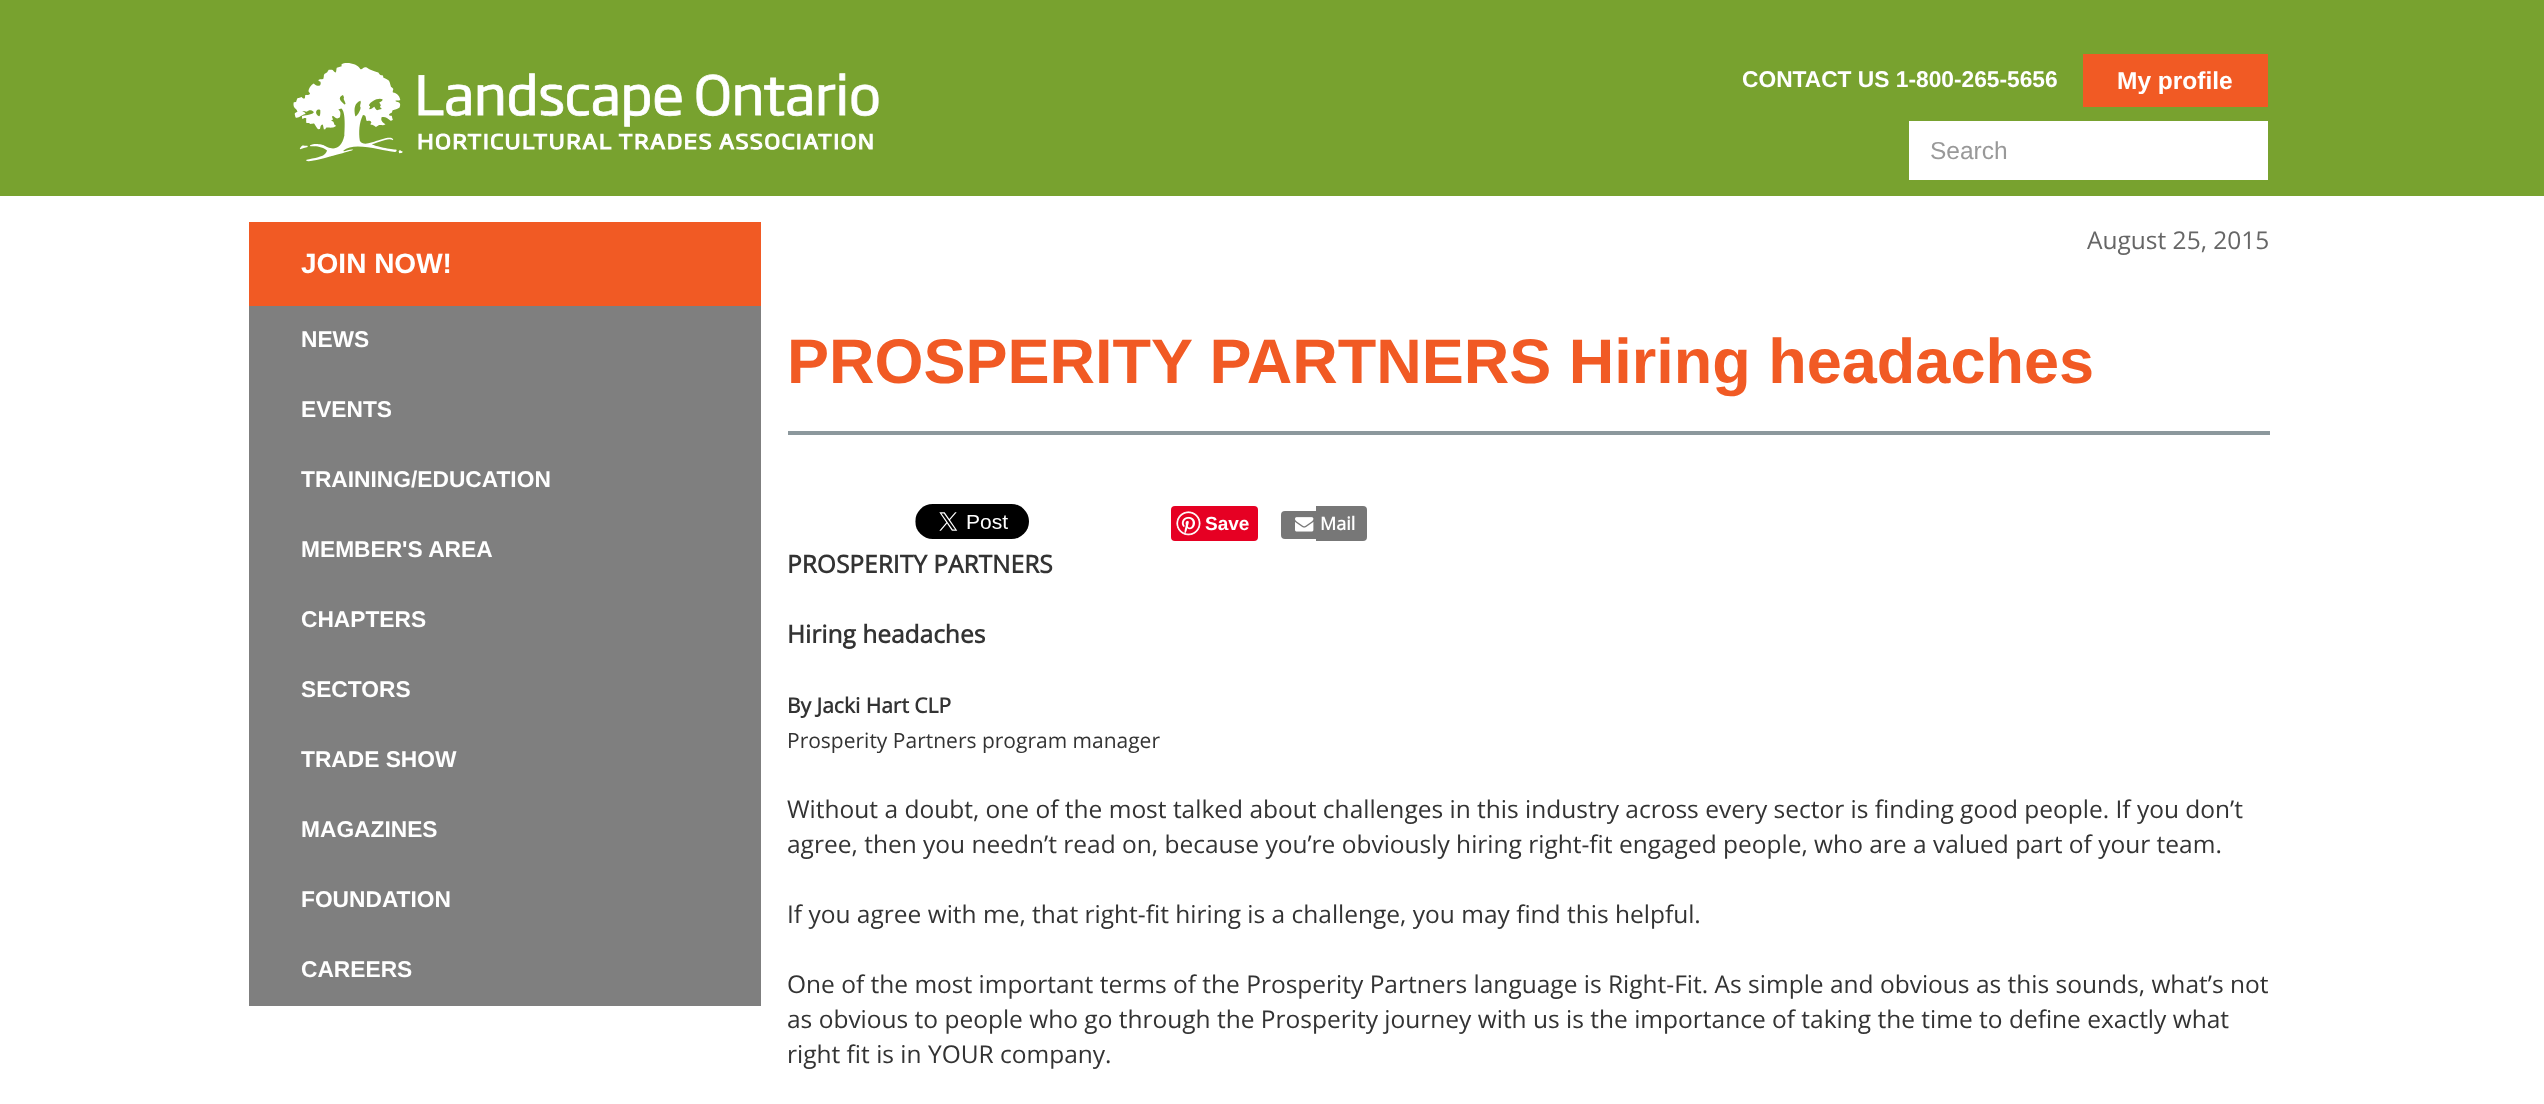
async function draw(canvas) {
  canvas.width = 2544;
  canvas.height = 1104;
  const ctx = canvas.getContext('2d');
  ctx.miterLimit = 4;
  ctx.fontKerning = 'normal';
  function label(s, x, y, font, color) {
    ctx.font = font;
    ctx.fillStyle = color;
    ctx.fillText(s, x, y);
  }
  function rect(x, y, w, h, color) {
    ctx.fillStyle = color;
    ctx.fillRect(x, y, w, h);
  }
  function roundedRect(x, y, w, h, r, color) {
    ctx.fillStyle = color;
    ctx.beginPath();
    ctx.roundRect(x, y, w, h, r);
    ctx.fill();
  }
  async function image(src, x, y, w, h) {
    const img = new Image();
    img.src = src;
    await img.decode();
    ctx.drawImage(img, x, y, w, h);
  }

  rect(0, 0, 2544, 1104, '#fff');
  rect(0, 0, 2544, 196, '#78a22f');
  await image('assets/img1.png', 293, 63, 586, 99);
  label('CONTACT US 1-800-265-5656', 1742, 87, 'bold 22.75px Liberation Sans', '#fff');
  rect(2083, 54, 185, 53, '#f15a24');
  label('My profile', 2117, 89, 'bold 24.5px Liberation Sans', '#fff');
  rect(1909, 121, 359, 59, '#fff');
  label('Search', 1930, 159, '24.5px Liberation Sans', '#999');
  rect(249, 222, 512, 84, '#f15a24');
  label('JOIN NOW!', 301, 273, 'bold 28px Liberation Sans', '#fff');
  rect(249, 306, 512, 700, '#7f7f7f');
  label('NEWS', 301, 347, 'bold 22.75px Liberation Sans', '#fff');
  label('EVENTS', 301, 417, 'bold 22.75px Liberation Sans', '#fff');
  label('TRAINING/EDUCATION', 301, 487, 'bold 22.75px Liberation Sans', '#fff');
  label('MEMBER\'S AREA', 301, 557, 'bold 22.75px Liberation Sans', '#fff');
  label('CHAPTERS', 301, 627, 'bold 22.75px Liberation Sans', '#fff');
  label('SECTORS', 301, 697, 'bold 22.75px Liberation Sans', '#fff');
  label('TRADE SHOW', 301, 767, 'bold 22.75px Liberation Sans', '#fff');
  label('MAGAZINES', 301, 837, 'bold 22.75px Liberation Sans', '#fff');
  label('FOUNDATION', 301, 907, 'bold 22.75px Liberation Sans', '#fff');
  label('CAREERS', 301, 977, 'bold 22.75px Liberation Sans', '#fff');
  label('August 25, 2015', 2087, 249, '24.5px Open Sans', '#666');
  rect(788, 431, 1482, 4, '#8c989d');
  label('PROSPERITY PARTNERS Hiring headaches', 787, 383, 'bold 63px Liberation Sans', '#f15a24');
  await image('assets/img2.png', 915, 504, 114, 35);
  roundedRect(1171, 506, 87, 35, 4, '#e60023');
  await image('assets/img3.png', 1176, 511, 25, 25);
  label('Save', 1205, 530, 'bold 19px Liberation Sans', '#fff');
  ctx.fillStyle = '#777';
  ctx.beginPath();
  ctx.roundRect(1281, 511, 35, 28, [4, 0, 0, 4]);
  ctx.fill();
  ctx.beginPath();
  ctx.roundRect(1316, 506, 51, 35, [0, 4, 4, 0]);
  ctx.fill();
  await image('assets/img4.png', 1295, 517, 19, 15);
  label('Mail', 1320, 530, 'bold 18px Open Sans', '#fff');
  label('PROSPERITY PARTNERS', 787, 573, 'bold 24.5px Open Sans', '#333');
  label('Hiring headaches', 787, 643, 'bold 24.5px Open Sans', '#333');
  label('By Jacki Hart CLP', 787, 713, 'bold 21px Open Sans', '#333');
  label('Prosperity Partners program manager', 787, 748, '21px Open Sans', '#333');
  label('Without a doubt, one of the most talked about challenges in this industry across every sector is finding good people. If you don’t', 787, 818, '24.5px Open Sans', '#333');
  label('agree, then you needn’t read on, because you’re obviously hiring right-fit engaged people, who are a valued part of your team.', 787, 853, '24.5px Open Sans', '#333');
  label('If you agree with me, that right-fit hiring is a challenge, you may find this helpful.', 787, 923, '24.5px Open Sans', '#333');
  label('One of the most important terms of the Prosperity Partners language is Right-Fit. As simple and obvious as this sounds, what’s not', 787, 993, '24.5px Open Sans', '#333');
  label('as obvious to people who go through the Prosperity journey with us is the importance of taking the time to define exactly what', 787, 1028, '24.5px Open Sans', '#333');
  label('right fit is in YOUR company.', 787, 1063, '24.5px Open Sans', '#333');
}

draw(document.querySelector('canvas'));
